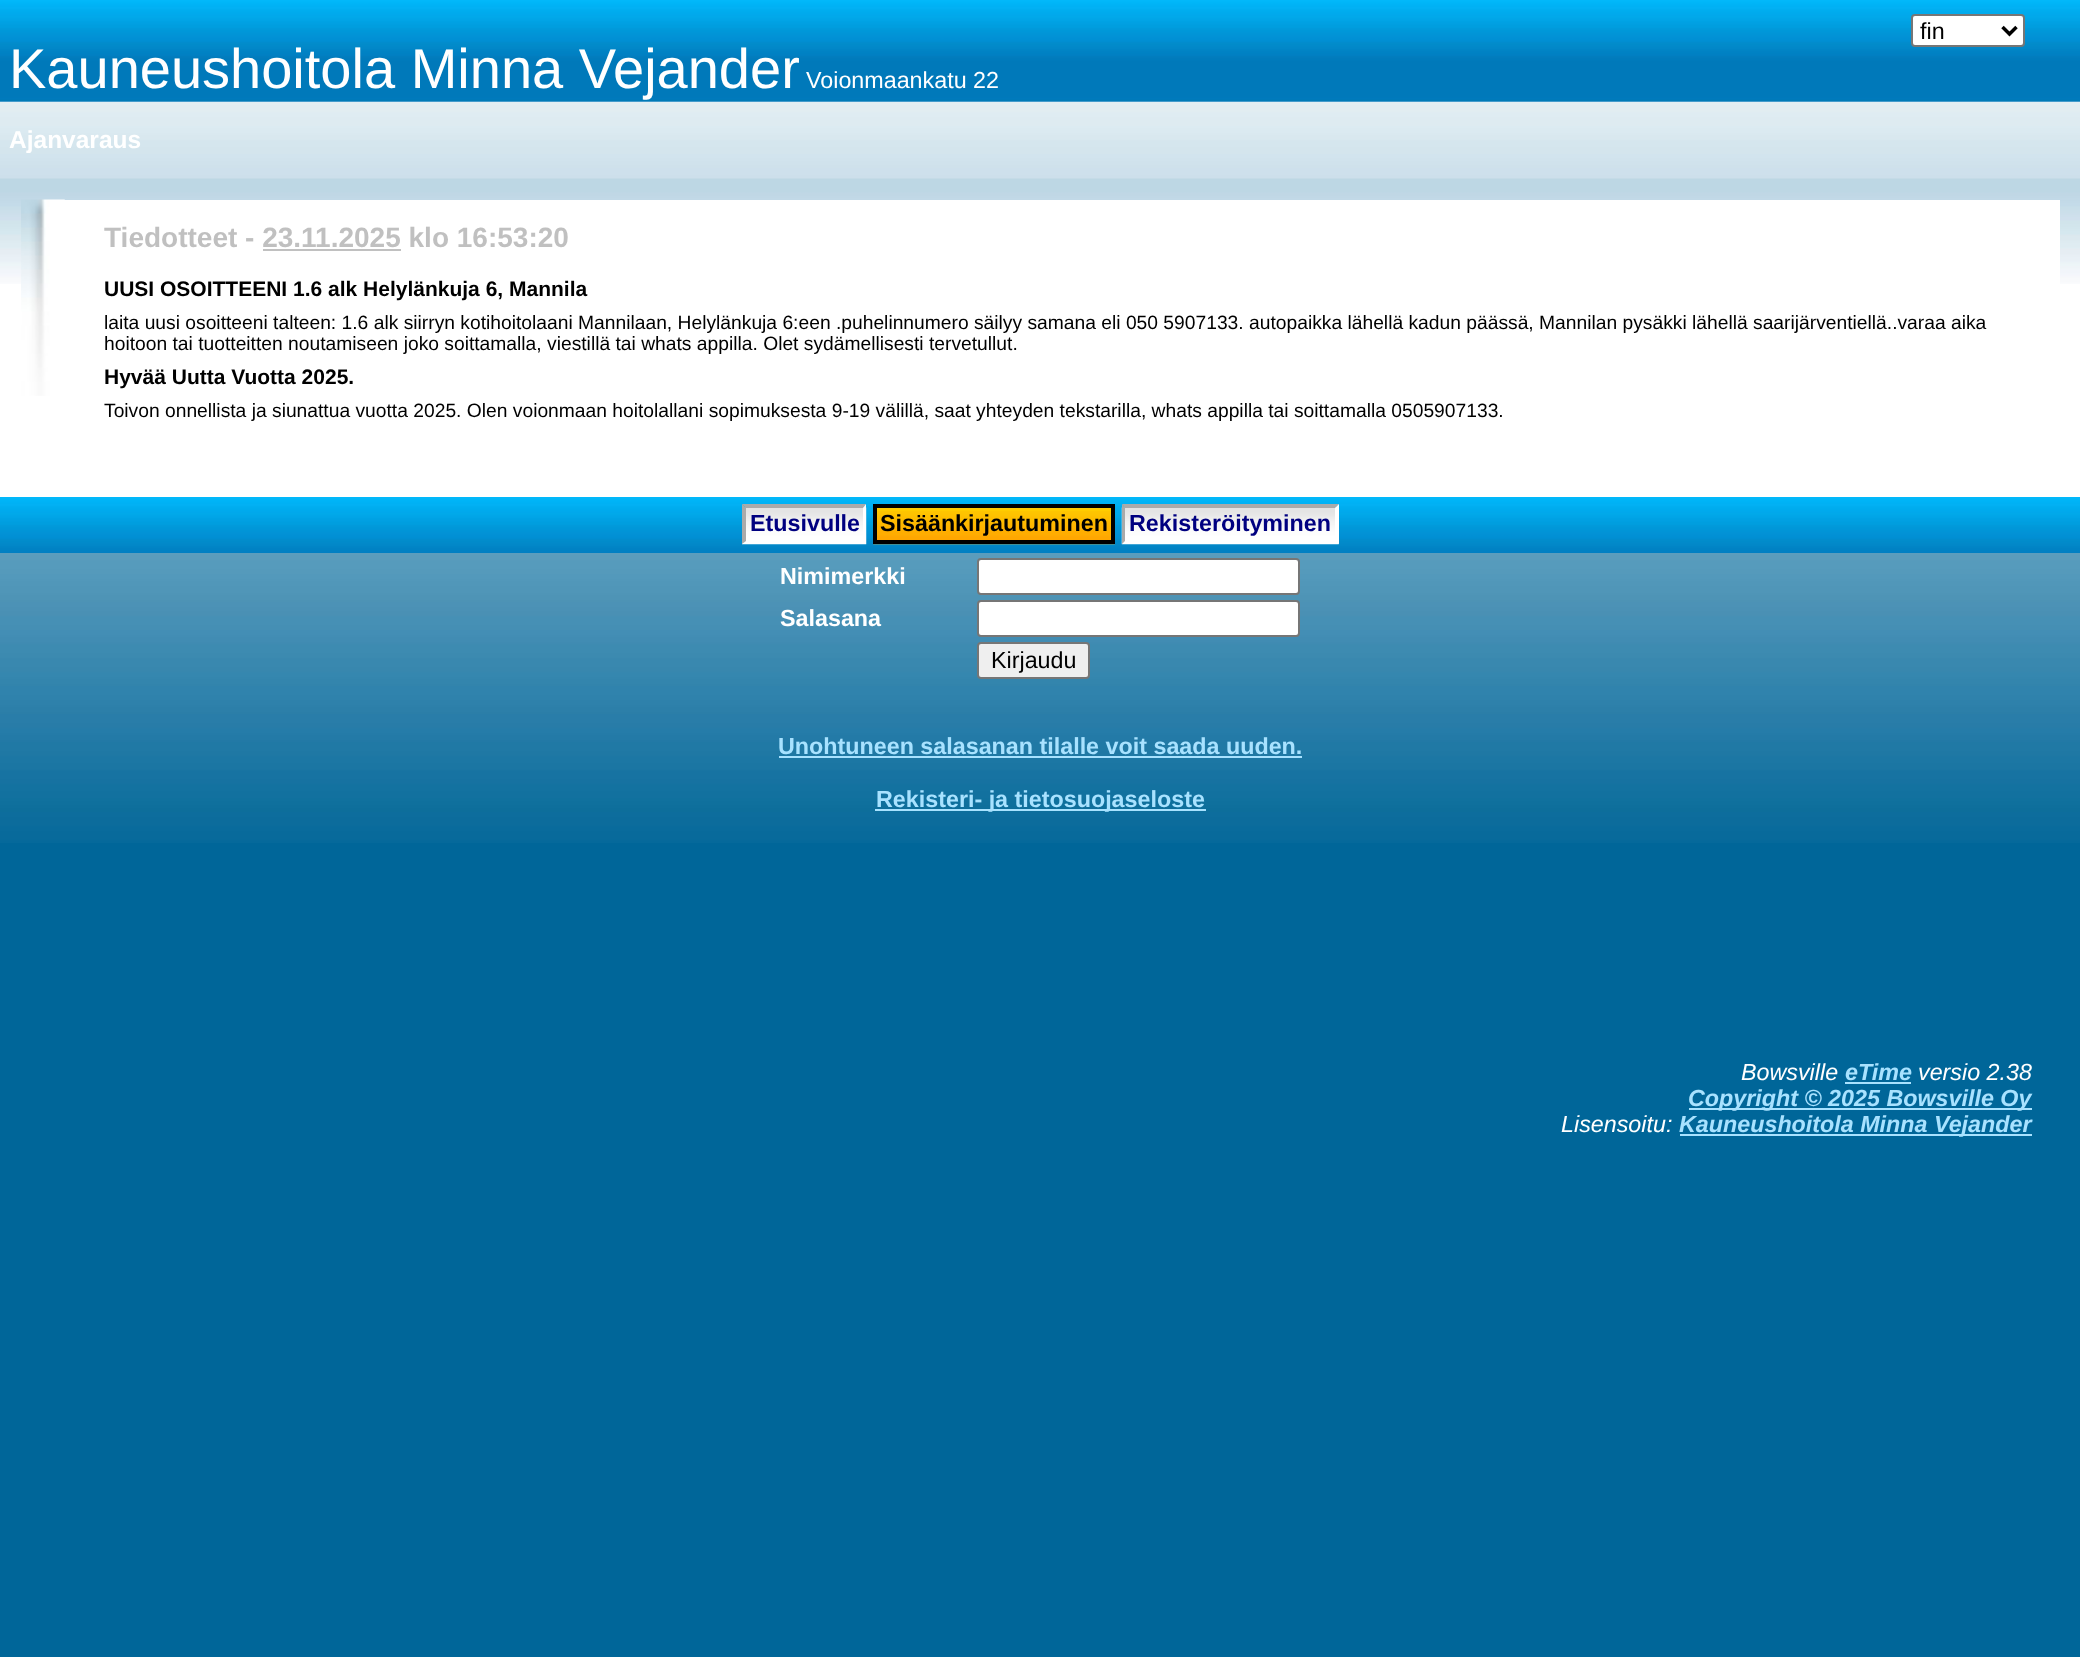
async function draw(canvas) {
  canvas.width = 2080;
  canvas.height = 1657;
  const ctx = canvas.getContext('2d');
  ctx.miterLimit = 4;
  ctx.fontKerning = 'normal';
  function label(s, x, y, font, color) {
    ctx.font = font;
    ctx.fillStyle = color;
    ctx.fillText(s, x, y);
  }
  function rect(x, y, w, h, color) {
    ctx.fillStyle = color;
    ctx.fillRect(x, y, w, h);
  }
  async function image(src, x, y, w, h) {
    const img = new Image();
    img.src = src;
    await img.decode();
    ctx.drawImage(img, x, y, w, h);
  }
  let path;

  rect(0, 0, 2080, 1657, '#069');
  await image('assets/img1.png', 0, 102, 2080, 741);
  rect(0, 101, 2080, 1, '#87bce0');
  await image('assets/img2.png', 0, 0, 2080, 102);
  ctx.fillStyle = '#fff';
  ctx.beginPath();
  ctx.roundRect(1912, 15, 112, 31, 3);
  ctx.fill();
  ctx.strokeStyle = '#767676';
  ctx.lineWidth = 2;
  ctx.stroke();
  path = new Path2D('M2002.5 27L2009.5 34L2016.5 27');
  ctx.strokeStyle = '#000';
  ctx.lineWidth = 3.5;
  ctx.stroke(path);
  label('fin', 1920, 39, '23.3px Liberation Sans', '#000');
  label('Kauneushoitola Minna Vejander', 9, 88, '56px Liberation Sans', '#fff');
  label('Voionmaankatu 22', 806, 88, '23.3px Liberation Sans', '#fff');
  label('Ajanvaraus', 9, 148, 'bold 24.5px Liberation Sans', '#fff');
  rect(0, 284, 2080, 213, '#fff');
  await image('assets/img3.png', 0, 178, 2080, 106);
  rect(21, 200, 2039, 84, '#fff');
  await image('assets/img4.png', 21, 199, 44, 197);
  label('Tiedotteet - 23.11.2025 klo 16:53:20', 104, 247, 'bold 28px Liberation Sans', '#c0c0c0');
  rect(263, 249, 138, 2, '#c0c0c0');
  label('UUSI OSOITTEENI 1.6 alk Helylänkuja 6, Mannila', 104, 296, 'bold 21px Liberation Sans', '#000');
  label('laita uusi osoitteeni talteen: 1.6 alk siirryn kotihoitolaani Mannilaan, Helylänkuja 6:een .puhelinnumero säilyy samana eli 050 5907133. autopaikka lähellä kadun päässä, Mannilan pysäkki lähellä saarijärventiellä..varaa aika', 104, 329, '19.25px Liberation Sans', '#000');
  label('hoitoon tai tuotteitten noutamiseen joko soittamalla, viestillä tai whats appilla. Olet sydämellisesti tervetullut.', 104, 350, '19.25px Liberation Sans', '#000');
  label('Hyvää Uutta Vuotta 2025.', 104, 384, 'bold 21px Liberation Sans', '#000');
  label('Toivon onnellista ja siunattua vuotta 2025. Olen voionmaan hoitolallani sopimuksesta 9-19 välillä, saat yhteyden tekstarilla, whats appilla tai soittamalla 0505907133.', 104, 417, '19.25px Liberation Sans', '#000');
  await image('assets/img5.png', 0, 497, 2080, 56);
  await image('assets/img6.png', 742, 507, 125, 38);
  await image('assets/img7.png', 873, 511, 242, 34);
  await image('assets/img8.png', 1121, 507, 218, 38);
  label('Etusivulle', 750, 531, 'bold 23.3px Liberation Sans', '#000080');
  ctx.fillStyle = '#aaa';
  path = new Path2D('M742 504H866L863 508H746Z');
  ctx.fill(path);
  ctx.fillStyle = '#fff';
  path = new Path2D('M866 504V544L863 541V508Z');
  ctx.fill(path);
  ctx.fillStyle = '#aaa';
  path = new Path2D('M742 544V504L746 508V541Z');
  ctx.fill(path);
  rect(877, 508, 234, 3, '#fc0');
  ctx.lineWidth = 4;
  ctx.strokeRect(875, 506, 238, 36);
  label('Sisäänkirjautuminen', 880, 531, 'bold 23.3px Liberation Sans', '#000');
  label('Rekisteröityminen', 1129, 531, 'bold 23.3px Liberation Sans', '#000080');
  ctx.fillStyle = '#aaa';
  path = new Path2D('M1122 504H1339L1335 508H1125Z');
  ctx.fill(path);
  ctx.fillStyle = '#fff';
  path = new Path2D('M1339 504V544L1335 541V508Z');
  ctx.fill(path);
  path = new Path2D('M1339 544H1122L1125 541H1335Z');
  ctx.fill(path);
  ctx.fillStyle = '#aaa';
  path = new Path2D('M1122 544V504L1125 508V541Z');
  ctx.fill(path);
  label('Nimimerkki', 780, 584, 'bold 23.3px Liberation Sans', '#fff');
  ctx.beginPath();
  ctx.roundRect(978, 559, 321, 35, 3);
  ctx.fill();
  ctx.strokeStyle = '#767676';
  ctx.lineWidth = 2;
  ctx.stroke();
  label('Salasana', 780, 626, 'bold 23.3px Liberation Sans', '#fff');
  ctx.beginPath();
  ctx.roundRect(978, 601, 321, 35, 3);
  ctx.fill();
  ctx.stroke();
  ctx.fillStyle = '#efefef';
  ctx.beginPath();
  ctx.roundRect(978, 643, 111, 35, 3);
  ctx.fill();
  ctx.stroke();
  label('Kirjaudu', 991, 668, '23.3px Liberation Sans', '#000');
  label('Unohtuneen salasanan tilalle voit saada uuden.', 778, 754, 'bold 23.3px Liberation Sans', '#a8e2ff');
  rect(779, 756, 523, 2, '#a8e2ff');
  rect(875, 809, 331, 2, '#a8e2ff');
  label('Rekisteri- ja tietosuojaseloste', 876, 807, 'bold 23.3px Liberation Sans', '#a8e2ff');
  label('Bowsville', 1741, 1080, 'italic 23.3px Liberation Sans', '#fff');
  label('eTime', 1845, 1080, 'italic bold 23.3px Liberation Sans', '#a8e2ff');
  rect(1845, 1082, 66, 2, '#a8e2ff');
  label('versio 2.38', 1918, 1080, 'italic 23.3px Liberation Sans', '#fff');
  rect(1689, 1108, 343, 2, '#a8e2ff');
  label('Copyright © 2025 Bowsville Oy', 1688, 1106, 'italic bold 23.3px Liberation Sans', '#a8e2ff');
  label('Lisensoitu:', 1561, 1132, 'italic 23.3px Liberation Sans', '#fff');
  rect(1680, 1134, 352, 2, '#a8e2ff');
  label('Kauneushoitola Minna Vejander', 1679, 1132, 'italic bold 23.3px Liberation Sans', '#a8e2ff');
}

draw(document.querySelector('canvas'));
